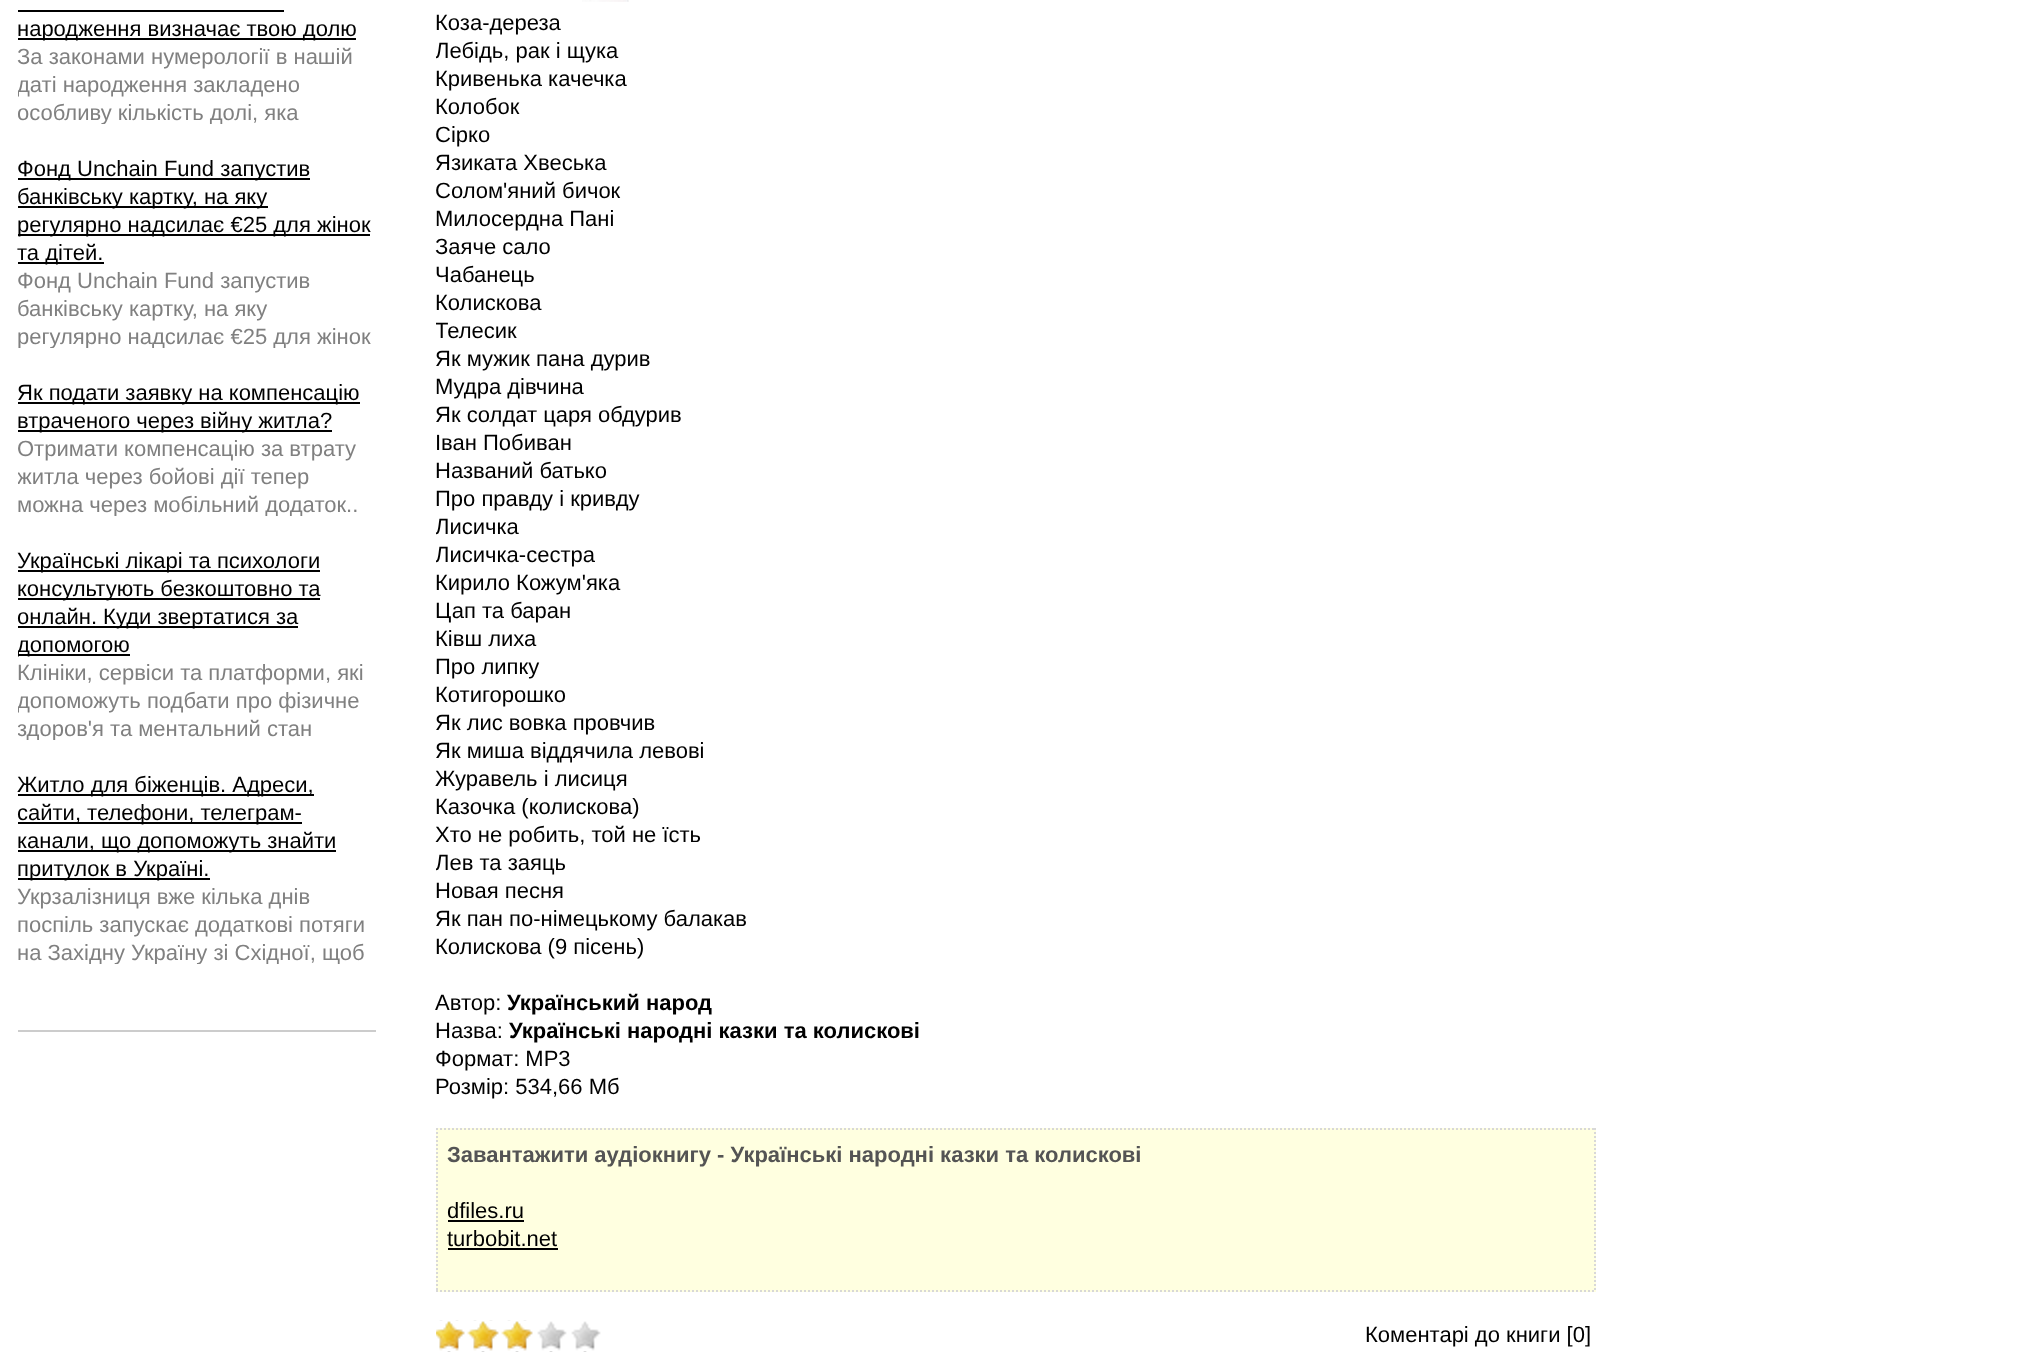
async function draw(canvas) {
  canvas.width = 2030;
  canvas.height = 1356;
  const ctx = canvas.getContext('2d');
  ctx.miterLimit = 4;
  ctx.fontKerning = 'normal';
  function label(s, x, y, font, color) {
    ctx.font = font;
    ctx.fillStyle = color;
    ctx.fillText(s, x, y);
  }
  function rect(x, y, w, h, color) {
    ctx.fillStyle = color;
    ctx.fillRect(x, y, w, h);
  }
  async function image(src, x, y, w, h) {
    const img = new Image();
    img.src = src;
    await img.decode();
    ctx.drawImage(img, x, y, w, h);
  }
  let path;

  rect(0, 0, 2030, 1356, '#fff');
  rect(18, 1030, 358, 2, '#ccc');
  rect(18, 38, 338, 2, '#000');
  label('народження визначає твою долю', 17, 36, '22px Liberation Sans', '#000');
  rect(18, 10, 266, 2, '#000');
  label('За законами нумерології в нашій', 17, 64, '22px Liberation Sans', '#808080');
  ctx.save();
  ctx.beginPath();
  ctx.rect(18, 42, 358, 82);
  ctx.clip();
  label('даті народження закладено', 17, 92, '22px Liberation Sans', '#808080');
  label('особливу кількість долі, яка', 17, 120, '22px Liberation Sans', '#808080');
  ctx.restore();
  rect(18, 178, 292, 2, '#000');
  label('Фонд Unchain Fund запустив', 17, 176, '22px Liberation Sans', '#000');
  rect(18, 206, 250, 2, '#000');
  label('банківську картку, на яку', 17, 204, '22px Liberation Sans', '#000');
  rect(18, 234, 352, 2, '#000');
  label('регулярно надсилає €25 для жінок', 17, 232, '22px Liberation Sans', '#000');
  rect(18, 262, 86, 2, '#000');
  label('та дітей.', 17, 260, '22px Liberation Sans', '#000');
  label('Фонд Unchain Fund запустив', 17, 288, '22px Liberation Sans', '#808080');
  label('банківську картку, на яку', 17, 316, '22px Liberation Sans', '#808080');
  ctx.save();
  ctx.beginPath();
  ctx.rect(18, 266, 358, 82);
  ctx.clip();
  label('регулярно надсилає €25 для жінок', 17, 344, '22px Liberation Sans', '#808080');
  ctx.restore();
  rect(18, 402, 342, 2, '#000');
  label('Як подати заявку на компенсацію', 17, 400, '22px Liberation Sans', '#000');
  rect(18, 430, 314, 2, '#000');
  label('втраченого через війну житла?', 17, 428, '22px Liberation Sans', '#000');
  label('Отримати компенсацію за втрату', 17, 456, '22px Liberation Sans', '#808080');
  ctx.save();
  ctx.beginPath();
  ctx.rect(18, 434, 358, 82);
  ctx.clip();
  label('житла через бойові дії тепер', 17, 484, '22px Liberation Sans', '#808080');
  label('можна через мобільний додаток..', 17, 512, '22px Liberation Sans', '#808080');
  ctx.restore();
  rect(18, 570, 302, 2, '#000');
  label('Українські лікарі та психологи', 17, 568, '22px Liberation Sans', '#000');
  rect(18, 598, 302, 2, '#000');
  label('консультують безкоштовно та', 17, 596, '22px Liberation Sans', '#000');
  rect(18, 626, 280, 2, '#000');
  label('онлайн. Куди звертатися за', 17, 624, '22px Liberation Sans', '#000');
  rect(18, 654, 112, 2, '#000');
  ctx.save();
  ctx.beginPath();
  ctx.rect(18, 0, 358, 1030);
  ctx.clip();
  label('допомогою', 17, 652, '22px Liberation Sans', '#000');
  ctx.restore();
  label('Клініки, сервіси та платформи, які', 17, 680, '22px Liberation Sans', '#808080');
  ctx.save();
  ctx.beginPath();
  ctx.rect(18, 658, 358, 82);
  ctx.clip();
  label('допоможуть подбати про фізичне', 17, 708, '22px Liberation Sans', '#808080');
  label('здоров\'я та ментальний стан', 17, 736, '22px Liberation Sans', '#808080');
  ctx.restore();
  rect(18, 794, 296, 2, '#000');
  label('Житло для біженців. Адреси,', 17, 792, '22px Liberation Sans', '#000');
  rect(18, 822, 284, 2, '#000');
  label('сайти, телефони, телеграм-', 17, 820, '22px Liberation Sans', '#000');
  rect(18, 850, 318, 2, '#000');
  label('канали, що допоможуть знайти', 17, 848, '22px Liberation Sans', '#000');
  rect(18, 878, 192, 2, '#000');
  label('притулок в Україні.', 17, 876, '22px Liberation Sans', '#000');
  label('Укрзалізниця вже кілька днів', 17, 904, '22px Liberation Sans', '#808080');
  label('поспіль запускає додаткові потяги', 17, 932, '22px Liberation Sans', '#808080');
  ctx.save();
  ctx.beginPath();
  ctx.rect(18, 882, 358, 82);
  ctx.clip();
  label('на Західну Україну зі Східної, щоб', 17, 960, '22px Liberation Sans', '#808080');
  ctx.restore();
  await image('assets/img1.png', 582, 0, 47, 2);
  label('Коза-дереза', 435, 30, '22px Liberation Sans', '#000');
  ctx.save();
  ctx.beginPath();
  ctx.rect(436, 0, 1160, 1292);
  ctx.clip();
  label('Лебідь, рак і щука', 435, 58, '22px Liberation Sans', '#000');
  ctx.restore();
  label('Кривенька качечка', 435, 86, '22px Liberation Sans', '#000');
  label('Колобок', 435, 114, '22px Liberation Sans', '#000');
  label('Сірко', 435, 142, '22px Liberation Sans', '#000');
  label('Язиката Хвеська', 435, 170, '22px Liberation Sans', '#000');
  label('Солом\'яний бичок', 435, 198, '22px Liberation Sans', '#000');
  label('Милосердна Пані', 435, 226, '22px Liberation Sans', '#000');
  label('Заяче сало', 435, 254, '22px Liberation Sans', '#000');
  label('Чабанець', 435, 282, '22px Liberation Sans', '#000');
  label('Колискова', 435, 310, '22px Liberation Sans', '#000');
  ctx.save();
  ctx.beginPath();
  ctx.rect(436, 0, 1160, 1292);
  ctx.clip();
  label('Телесик', 435, 338, '22px Liberation Sans', '#000');
  ctx.restore();
  label('Як мужик пана дурив', 435, 366, '22px Liberation Sans', '#000');
  label('Мудра дівчина', 435, 394, '22px Liberation Sans', '#000');
  label('Як солдат царя обдурив', 435, 422, '22px Liberation Sans', '#000');
  label('Іван Побиван', 435, 450, '22px Liberation Sans', '#000');
  label('Названий батько', 435, 478, '22px Liberation Sans', '#000');
  label('Про правду і кривду', 435, 506, '22px Liberation Sans', '#000');
  ctx.save();
  ctx.beginPath();
  ctx.rect(436, 0, 1160, 1292);
  ctx.clip();
  label('Лисичка', 435, 534, '22px Liberation Sans', '#000');
  label('Лисичка-сестра', 435, 562, '22px Liberation Sans', '#000');
  ctx.restore();
  label('Кирило Кожум\'яка', 435, 590, '22px Liberation Sans', '#000');
  label('Цап та баран', 435, 618, '22px Liberation Sans', '#000');
  label('Ківш лиха', 435, 646, '22px Liberation Sans', '#000');
  label('Про липку', 435, 674, '22px Liberation Sans', '#000');
  label('Котигорошко', 435, 702, '22px Liberation Sans', '#000');
  label('Як лис вовка провчив', 435, 730, '22px Liberation Sans', '#000');
  label('Як миша віддячила левові', 435, 758, '22px Liberation Sans', '#000');
  label('Журавель і лисиця', 435, 786, '22px Liberation Sans', '#000');
  label('Казочка (колискова)', 435, 814, '22px Liberation Sans', '#000');
  label('Хто не робить, той не їсть', 435, 842, '22px Liberation Sans', '#000');
  ctx.save();
  ctx.beginPath();
  ctx.rect(436, 0, 1160, 1292);
  ctx.clip();
  label('Лев та заяць', 435, 870, '22px Liberation Sans', '#000');
  ctx.restore();
  label('Новая песня', 435, 898, '22px Liberation Sans', '#000');
  label('Як пан по-німецькому балакав', 435, 926, '22px Liberation Sans', '#000');
  label('Колискова (9 пісень)', 435, 954, '22px Liberation Sans', '#000');
  label('Автор:', 435, 1010, '22px Liberation Sans', '#000');
  label('Український народ', 507, 1010, 'bold 22px Liberation Sans', '#000');
  label('Назва:', 435, 1038, '22px Liberation Sans', '#000');
  label('Українські народні казки та колискові', 509, 1038, 'bold 22px Liberation Sans', '#000');
  label('Формат: MP3', 435, 1066, '22px Liberation Sans', '#000');
  label('Розмір: 534,66 Мб', 435, 1094, '22px Liberation Sans', '#000');
  rect(436, 1128, 1160, 164, '#ffffe0');
  path = new Path2D('M436 1129H1596');
  ctx.strokeStyle = '#d8d8d8';
  ctx.lineWidth = 2;
  ctx.setLineDash([2, 2]);
  ctx.stroke(path);
  path = new Path2D('M1595 1128V1292');
  ctx.stroke(path);
  path = new Path2D('M436 1291H1596');
  ctx.stroke(path);
  path = new Path2D('M437 1128V1292');
  ctx.stroke(path);
  label('Завантажити аудіокнигу - Українські народні казки та колискові', 447, 1162, 'bold 22px Liberation Sans', '#545454');
  label('dfiles.ru', 447, 1218, '22px Liberation Sans', '#000');
  rect(448, 1220, 76, 2, '#000');
  label('turbobit.net', 447, 1246, '22px Liberation Sans', '#000');
  rect(448, 1248, 110, 2, '#000');
  await image('assets/img2.png', 436, 1321, 165, 31);
  await image('assets/img3.png', 436, 1320, 97, 31);
  label('Коментарі до книги [0]', 1365, 1342, '22px Liberation Sans', '#000');
}

draw(document.querySelector('canvas'));
